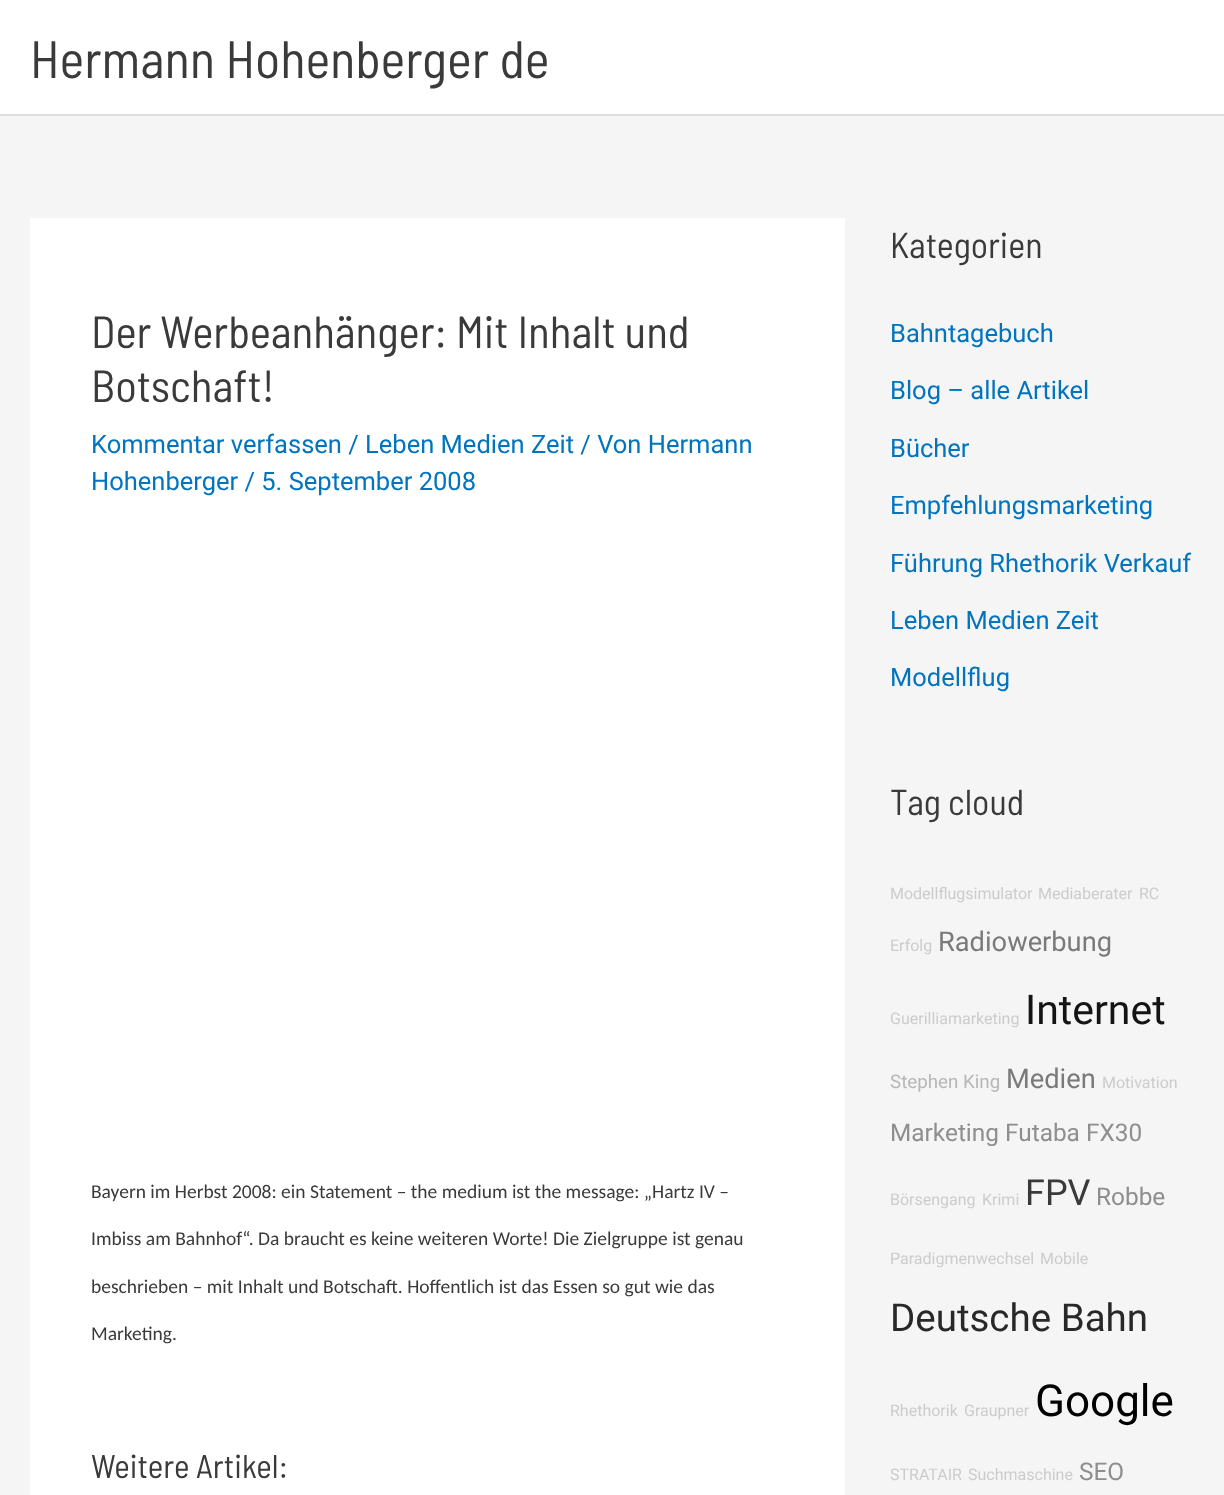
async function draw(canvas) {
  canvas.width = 1224;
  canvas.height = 1495;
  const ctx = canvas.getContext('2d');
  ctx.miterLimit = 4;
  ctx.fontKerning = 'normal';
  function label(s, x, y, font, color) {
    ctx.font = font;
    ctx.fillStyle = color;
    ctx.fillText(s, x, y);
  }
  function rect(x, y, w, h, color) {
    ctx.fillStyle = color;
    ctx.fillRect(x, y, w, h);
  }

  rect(0, 0, 1224, 1495, '#f5f5f5');
  rect(0, 0, 1224, 114, '#fff');
  rect(0, 114, 1224, 2, '#ddd');
  label('Hermann Hohenberger de', 30, 78, '52.5px Barlow Semi Condensed', '#3a3a3a');
  rect(30, 218, 815, 1277, '#fff');
  label('Der Werbeanhänger: Mit Inhalt und', 91, 348, '45px Barlow Semi Condensed', '#3a3a3a');
  label('Botschaft!', 91, 402, '45px Barlow Semi Condensed', '#3a3a3a');
  label('Kommentar verfassen / Leben Medien Zeit / Von Hermann', 91, 453, '25.5px Roboto', '#0274be');
  label('Hohenberger / 5. September 2008', 91, 490, '25.5px Roboto', '#0274be');
  label('Bayern im Herbst 2008: ein Statement – the medium ist the message: „Hartz IV –', 91, 1198, '19.5px Carlito', '#3a3a3a');
  label('Imbiss am Bahnhof“. Da braucht es keine weiteren Worte! Die Zielgruppe ist genau', 91, 1245, '19.5px Carlito', '#3a3a3a');
  label('beschrieben – mit Inhalt und Botschaft. Hoffentlich ist das Essen so gut wie das', 91, 1293, '19.5px Carlito', '#3a3a3a');
  label('Marketing.', 91, 1340, '19.5px Carlito', '#3a3a3a');
  label('Weitere Artikel:', 91, 1478, '33px Barlow Semi Condensed', '#3a3a3a');
  label('Kategorien', 890, 258, '36px Barlow Semi Condensed', '#3a3a3a');
  label('Bahntagebuch', 890, 342, '25.5px Roboto', '#0274be');
  label('Blog – alle Artikel', 890, 399, '25.5px Roboto', '#0274be');
  label('Bücher', 890, 457, '25.5px Roboto', '#0274be');
  label('Empfehlungsmarketing', 890, 514, '25.5px Roboto', '#0274be');
  label('Führung Rhethorik Verkauf', 890, 572, '25.5px Roboto', '#0274be');
  label('Leben Medien Zeit', 890, 629, '25.5px Roboto', '#0274be');
  label('Modellflug', 890, 686, '25.5px Roboto', '#0274be');
  label('Tag cloud', 890, 815, '36px Barlow Semi Condensed', '#3a3a3a');
  label('Modellflugsimulator', 890, 899, '16px Roboto', '#ccc');
  label('Mediaberater', 1038, 899, '16px Roboto', '#ccc');
  label('RC', 1139, 899, '16px Roboto', '#ccc');
  label('Erfolg', 890, 951, '16px Roboto', '#ccc');
  label('Radiowerbung', 938, 951, '27.25px Roboto', '#7a7a7a');
  label('Guerilliamarketing', 890, 1024, '16px Roboto', '#ccc');
  label('Internet', 1025, 1024, '41px Roboto', '#141414');
  label('Stephen King', 890, 1088, '18.75px Roboto', '#b7b7b7');
  label('Medien', 1006, 1088, '27.25px Roboto', '#7a7a7a');
  label('Motivation', 1102, 1088, '16px Roboto', '#ccc');
  label('Marketing Futaba FX30', 890, 1141, '24.4px Roboto', '#8e8e8e');
  label('Börsengang', 890, 1205, '16px Roboto', '#ccc');
  label('Krimi', 982, 1205, '16px Roboto', '#ccc');
  label('FPV', 1025, 1205, '36px Roboto', '#3a3a3a');
  label('Robbe', 1096, 1205, '24.4px Roboto', '#8e8e8e');
  label('Paradigmenwechsel', 890, 1264, '16px Roboto', '#ccc');
  label('Mobile', 1040, 1264, '16px Roboto', '#ccc');
  label('Deutsche Bahn', 890, 1331, '38.5px Roboto', '#282828');
  label('Rhethorik', 890, 1416, '16px Roboto', '#ccc');
  label('Graupner', 964, 1416, '16px Roboto', '#ccc');
  label('Google', 1035, 1416, '44px Roboto', '#000');
  label('STRATAIR', 890, 1480, '16px Roboto', '#ccc');
  label('Suchmaschine', 968, 1480, '16px Roboto', '#ccc');
  label('SEO', 1079, 1480, '24.4px Roboto', '#8e8e8e');
}

draw(document.querySelector('canvas'));
